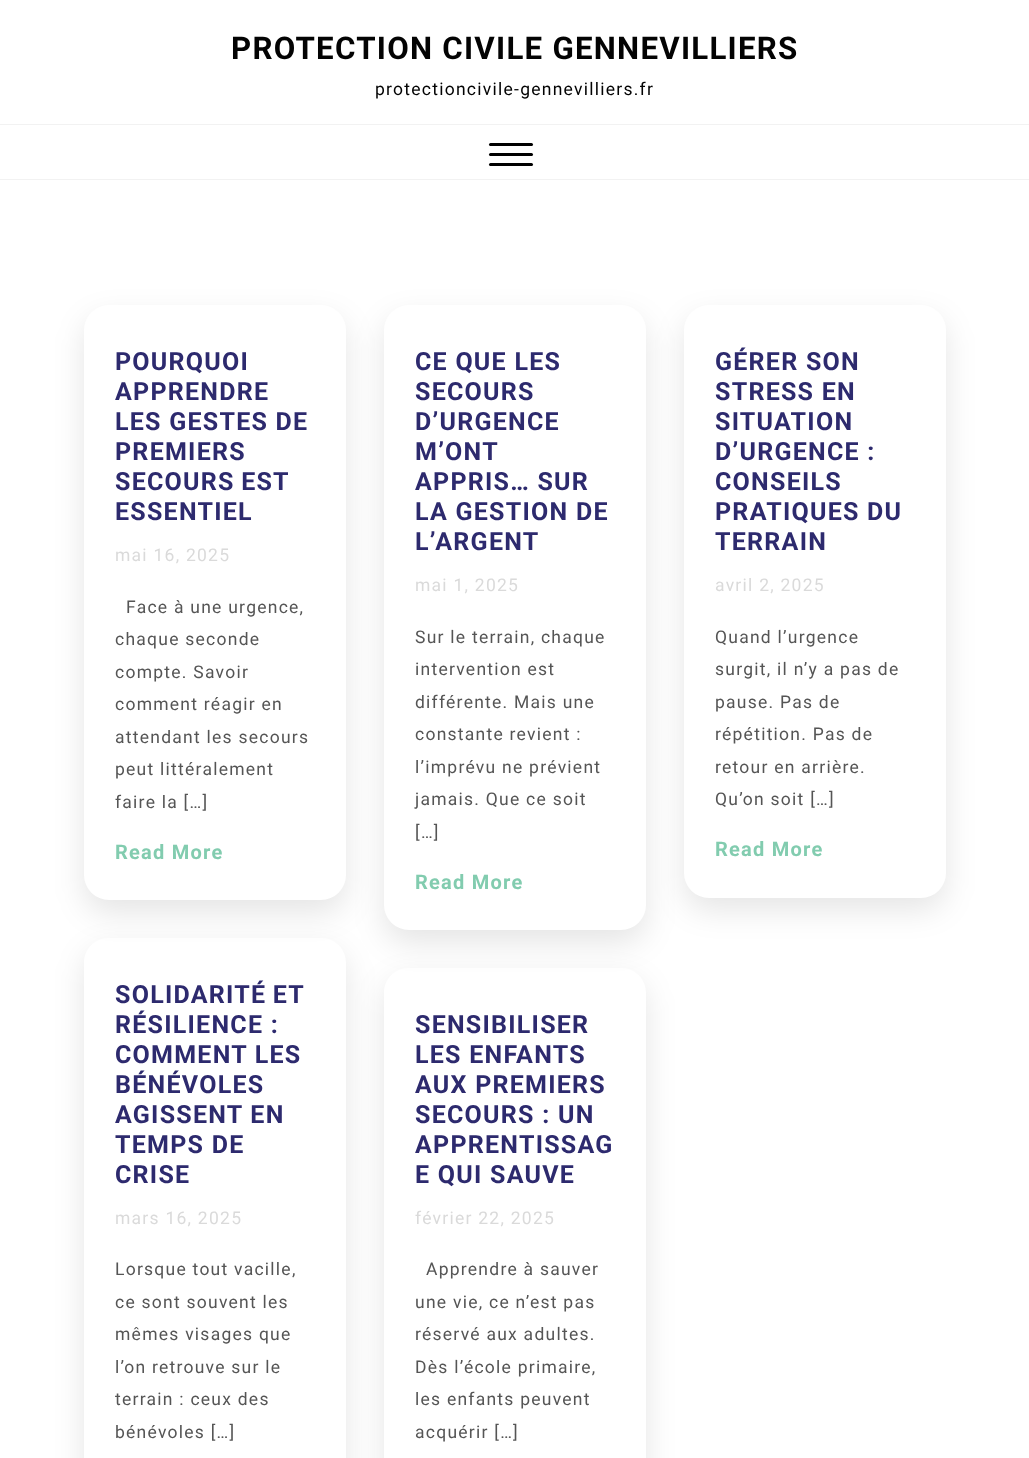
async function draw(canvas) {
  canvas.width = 1029;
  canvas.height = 1458;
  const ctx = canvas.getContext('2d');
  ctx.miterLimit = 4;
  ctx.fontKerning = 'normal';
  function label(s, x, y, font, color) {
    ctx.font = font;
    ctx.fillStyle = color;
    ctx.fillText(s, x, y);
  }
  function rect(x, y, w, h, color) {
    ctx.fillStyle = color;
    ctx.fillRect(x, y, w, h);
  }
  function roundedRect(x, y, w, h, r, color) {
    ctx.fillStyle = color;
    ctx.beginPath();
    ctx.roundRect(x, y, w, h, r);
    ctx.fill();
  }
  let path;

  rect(0, 0, 1029, 1458, '#fff');
  ctx.letterSpacing = '1.25px';
  label('PROTECTION CIVILE GENNEVILLIERS', 231, 59, 'bold 31.25px Roboto', '#030303');
  label('protectioncivile-gennevilliers.fr', 375, 95, '17.5px Roboto', '#030303');
  rect(0, 124, 1029, 1, '#f2f2f2');
  rect(0, 179, 1029, 1, '#f2f2f2');
  roundedRect(489, 143, 44, 3, 1.5, '#000');
  roundedRect(489, 153, 44, 3, 1.5, '#000');
  roundedRect(489, 163, 44, 3, 1.5, '#000');
  ctx.fillStyle = '#0000001a';
  ctx.filter = 'blur(15.5px)';
  ctx.beginPath();
  ctx.roundRect(84, 318, 262, 595, 25);
  ctx.fill();
  ctx.filter = 'none';
  roundedRect(84, 305, 262, 595, 25, '#fff');
  label('POURQUOI', 115, 370, 'bold 25px Roboto', '#2d2a6e');
  label('APPRENDRE', 115, 400, 'bold 25px Roboto', '#2d2a6e');
  label('LES GESTES DE', 115, 430, 'bold 25px Roboto', '#2d2a6e');
  label('PREMIERS', 115, 460, 'bold 25px Roboto', '#2d2a6e');
  ctx.wordSpacing = '-1px';
  label('SECOURS EST', 115, 490, 'bold 25px Roboto', '#2d2a6e');
  ctx.wordSpacing = '0px';
  label('ESSENTIEL', 115, 520, 'bold 25px Roboto', '#2d2a6e');
  label('mai 16, 2025', 115, 561, '17.5px Roboto', '#dadada');
  label('Face à une urgence,', 126, 613, '17.5px Roboto', '#555');
  label('chaque seconde', 115, 645, '17.5px Roboto', '#555');
  label('compte. Savoir', 115, 678, '17.5px Roboto', '#555');
  label('comment réagir en', 115, 710, '17.5px Roboto', '#555');
  label('attendant les secours', 115, 743, '17.5px Roboto', '#555');
  label('peut littéralement', 115, 775, '17.5px Roboto', '#555');
  label('faire la […]', 115, 808, '17.5px Roboto', '#555');
  label('Read More', 115, 859, 'bold 20px Roboto', '#82ccaf');
  ctx.fillStyle = '#0000001a';
  ctx.filter = 'blur(15.5px)';
  ctx.beginPath();
  ctx.roundRect(384, 318, 262, 625, 25);
  ctx.fill();
  ctx.filter = 'none';
  roundedRect(384, 305, 262, 625, 25, '#fff');
  label('CE QUE LES', 415, 370, 'bold 25px Roboto', '#2d2a6e');
  label('SECOURS', 415, 400, 'bold 25px Roboto', '#2d2a6e');
  label('D’URGENCE', 415, 430, 'bold 25px Roboto', '#2d2a6e');
  label('M’ONT', 415, 460, 'bold 25px Roboto', '#2d2a6e');
  label('APPRIS… SUR', 415, 490, 'bold 25px Roboto', '#2d2a6e');
  label('LA GESTION DE', 415, 520, 'bold 25px Roboto', '#2d2a6e');
  label('L’ARGENT', 415, 550, 'bold 25px Roboto', '#2d2a6e');
  label('mai 1, 2025', 415, 591, '17.5px Roboto', '#dadada');
  label('Sur le terrain, chaque', 415, 643, '17.5px Roboto', '#555');
  label('intervention est', 415, 675, '17.5px Roboto', '#555');
  label('différente. Mais une', 415, 708, '17.5px Roboto', '#555');
  label('constante revient :', 415, 740, '17.5px Roboto', '#555');
  label('l’imprévu ne prévient', 415, 773, '17.5px Roboto', '#555');
  label('jamais. Que ce soit', 415, 805, '17.5px Roboto', '#555');
  label('[…]', 415, 838, '17.5px Roboto', '#555');
  label('Read More', 415, 889, 'bold 20px Roboto', '#82ccaf');
  ctx.fillStyle = '#0000001a';
  ctx.filter = 'blur(15.5px)';
  ctx.beginPath();
  ctx.roundRect(684, 318, 262, 592, 25);
  ctx.fill();
  ctx.filter = 'none';
  roundedRect(684, 305, 262, 593, 25, '#fff');
  label('GÉRER SON', 715, 370, 'bold 25px Roboto', '#2d2a6e');
  label('STRESS EN', 715, 400, 'bold 25px Roboto', '#2d2a6e');
  label('SITUATION', 715, 430, 'bold 25px Roboto', '#2d2a6e');
  label('D’URGENCE :', 715, 460, 'bold 25px Roboto', '#2d2a6e');
  label('CONSEILS', 715, 490, 'bold 25px Roboto', '#2d2a6e');
  label('PRATIQUES DU', 715, 520, 'bold 25px Roboto', '#2d2a6e');
  label('TERRAIN', 715, 550, 'bold 25px Roboto', '#2d2a6e');
  label('avril 2, 2025', 715, 591, '17.5px Roboto', '#dadada');
  label('Quand l’urgence', 715, 643, '17.5px Roboto', '#555');
  label('surgit, il n’y a pas de', 715, 675, '17.5px Roboto', '#555');
  label('pause. Pas de', 715, 708, '17.5px Roboto', '#555');
  label('répétition. Pas de', 715, 740, '17.5px Roboto', '#555');
  label('retour en arrière.', 715, 773, '17.5px Roboto', '#555');
  label('Qu’on soit […]', 715, 805, '17.5px Roboto', '#555');
  label('Read More', 715, 856, 'bold 20px Roboto', '#82ccaf');
  ctx.save();
  path = new Path2D('M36 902H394V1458H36ZM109 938H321C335 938 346 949 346 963V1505C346 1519 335 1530 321 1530H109C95 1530 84 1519 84 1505V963C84 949 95 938 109 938Z');
  ctx.clip(path, 'evenodd');
  ctx.fillStyle = '#0000001a';
  ctx.filter = 'blur(15.5px)';
  ctx.beginPath();
  ctx.roundRect(84, 950, 262, 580, 25);
  ctx.fill();
  ctx.filter = 'none';
  ctx.restore();
  ctx.wordSpacing = '-1px';
  label('SOLIDARITÉ ET', 115, 1003, 'bold 25px Roboto', '#2d2a6e');
  ctx.wordSpacing = '0px';
  label('RÉSILIENCE :', 115, 1033, 'bold 25px Roboto', '#2d2a6e');
  label('COMMENT LES', 115, 1063, 'bold 25px Roboto', '#2d2a6e');
  label('BÉNÉVOLES', 115, 1093, 'bold 25px Roboto', '#2d2a6e');
  label('AGISSENT EN', 115, 1123, 'bold 25px Roboto', '#2d2a6e');
  label('TEMPS DE', 115, 1153, 'bold 25px Roboto', '#2d2a6e');
  label('CRISE', 115, 1183, 'bold 25px Roboto', '#2d2a6e');
  label('mars 16, 2025', 115, 1224, '17.5px Roboto', '#dadada');
  label('Lorsque tout vacille,', 115, 1275, '17.5px Roboto', '#555');
  label('ce sont souvent les', 115, 1308, '17.5px Roboto', '#555');
  label('mêmes visages que', 115, 1340, '17.5px Roboto', '#555');
  label('l’on retrouve sur le', 115, 1373, '17.5px Roboto', '#555');
  label('terrain : ceux des', 115, 1405, '17.5px Roboto', '#555');
  label('bénévoles […]', 115, 1438, '17.5px Roboto', '#555');
  ctx.save();
  path = new Path2D('M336 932H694V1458H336ZM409 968H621C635 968 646 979 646 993V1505C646 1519 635 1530 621 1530H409C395 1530 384 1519 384 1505V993C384 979 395 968 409 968Z');
  ctx.clip(path, 'evenodd');
  ctx.fillStyle = '#0000001a';
  ctx.filter = 'blur(15.5px)';
  ctx.beginPath();
  ctx.roundRect(384, 980, 262, 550, 25);
  ctx.fill();
  ctx.filter = 'none';
  ctx.restore();
  label('SENSIBILISER', 415, 1033, 'bold 25px Roboto', '#2d2a6e');
  label('LES ENFANTS', 415, 1063, 'bold 25px Roboto', '#2d2a6e');
  label('AUX PREMIERS', 415, 1093, 'bold 25px Roboto', '#2d2a6e');
  label('SECOURS : UN', 415, 1123, 'bold 25px Roboto', '#2d2a6e');
  label('APPRENTISSAG', 415, 1153, 'bold 25px Roboto', '#2d2a6e');
  label('E QUI SAUVE', 415, 1183, 'bold 25px Roboto', '#2d2a6e');
  label('février 22, 2025', 415, 1224, '17.5px Roboto', '#dadada');
  label('Apprendre à sauver', 426, 1275, '17.5px Roboto', '#555');
  label('une vie, ce n’est pas', 415, 1308, '17.5px Roboto', '#555');
  label('réservé aux adultes.', 415, 1340, '17.5px Roboto', '#555');
  label('Dès l’école primaire,', 415, 1373, '17.5px Roboto', '#555');
  label('les enfants peuvent', 415, 1405, '17.5px Roboto', '#555');
  label('acquérir […]', 415, 1438, '17.5px Roboto', '#555');
}

draw(document.querySelector('canvas'));
